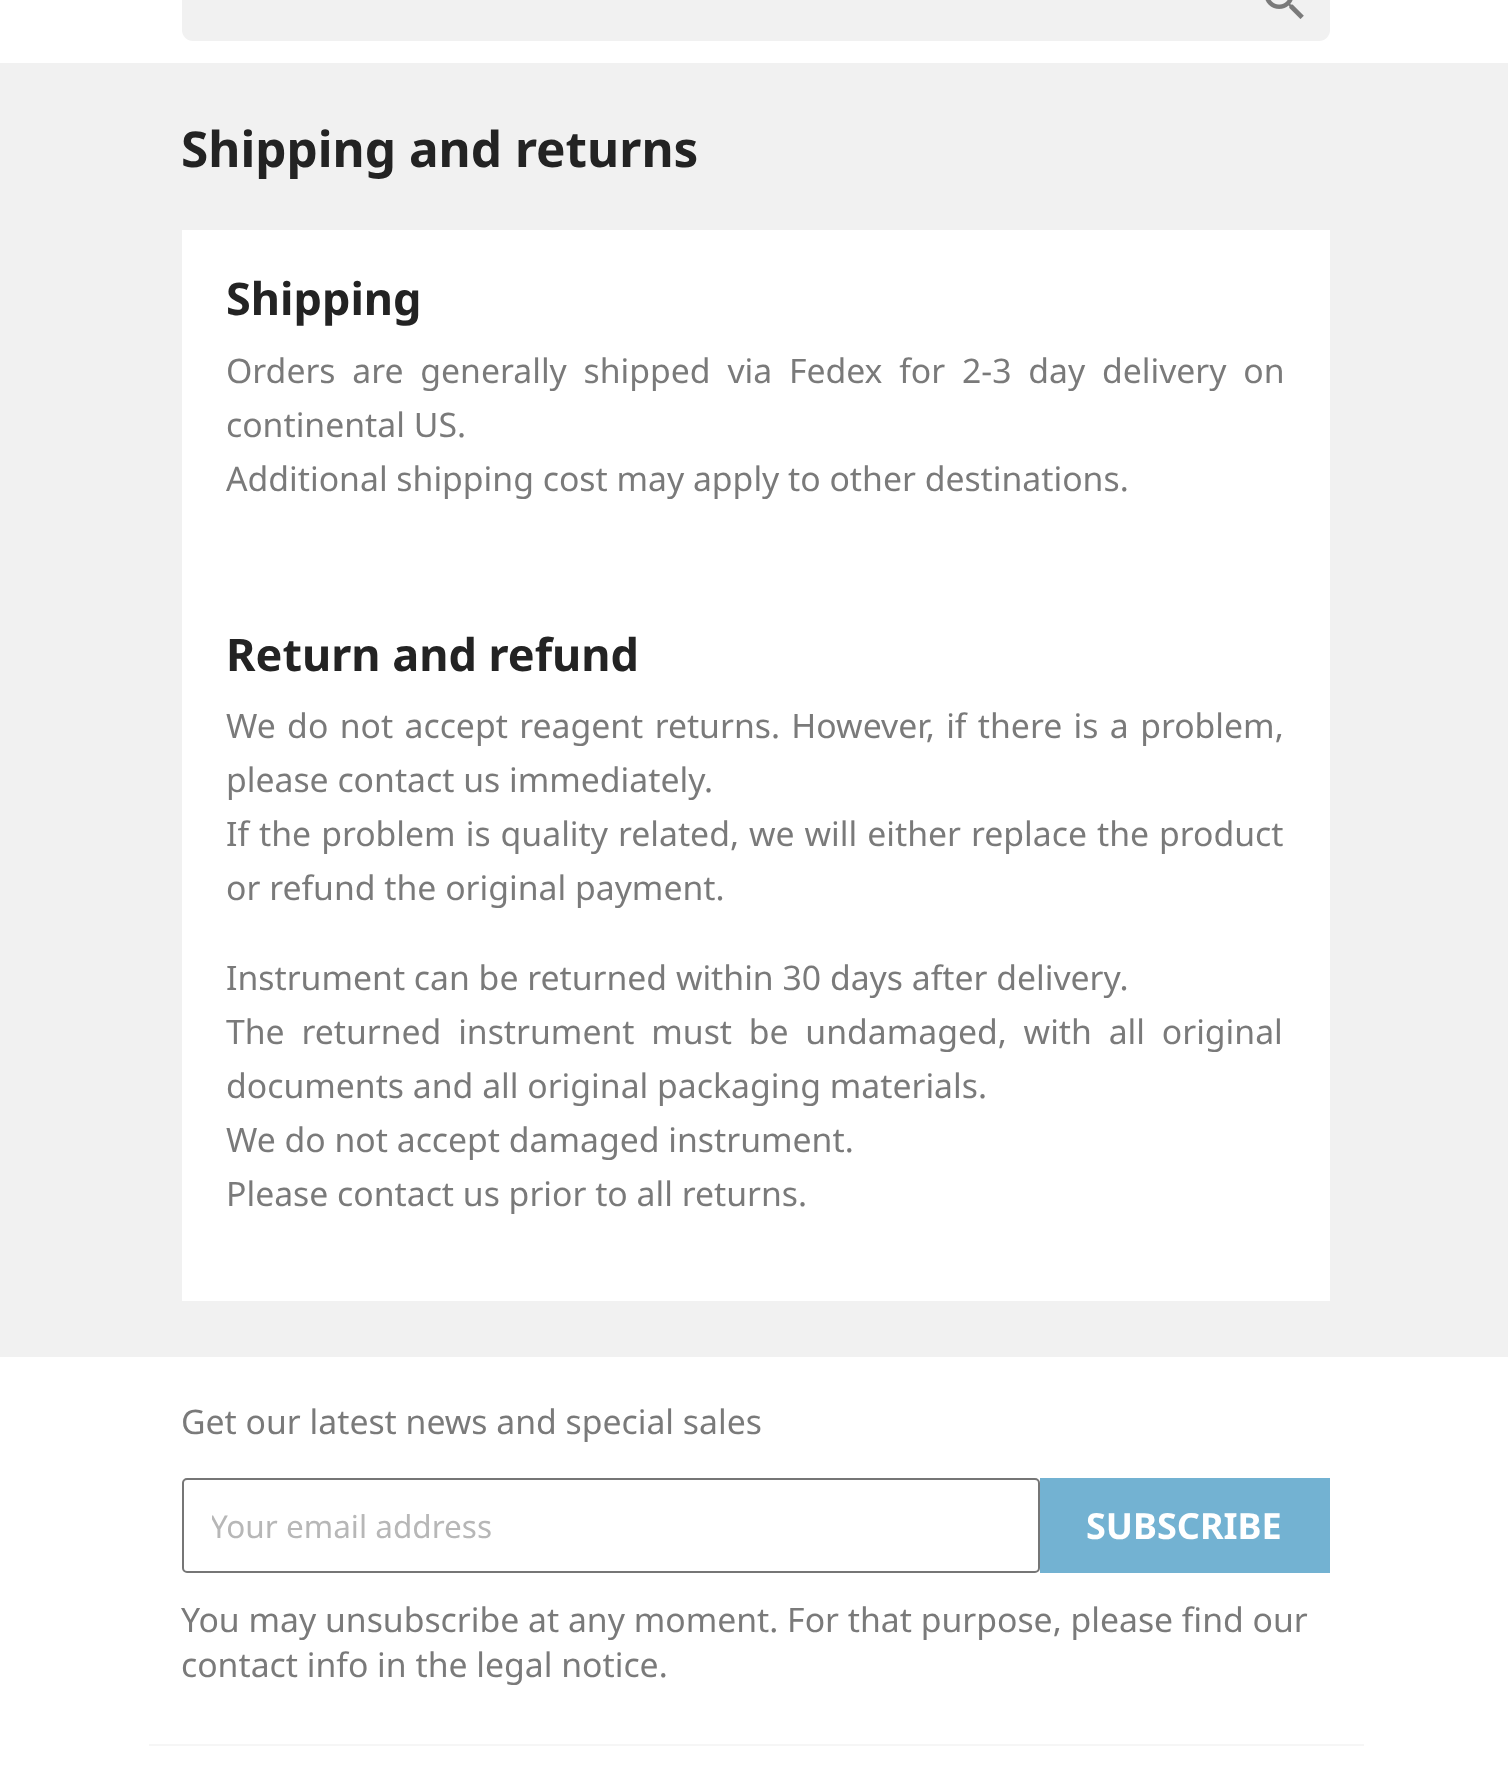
async function draw(canvas) {
  canvas.width = 1508;
  canvas.height = 1779;
  const ctx = canvas.getContext('2d');
  ctx.miterLimit = 4;
  ctx.fontKerning = 'normal';
  function label(s, x, y, font, color) {
    ctx.font = font;
    ctx.fillStyle = color;
    ctx.fillText(s, x, y);
  }
  function rect(x, y, w, h, color) {
    ctx.fillStyle = color;
    ctx.fillRect(x, y, w, h);
  }
  function roundedRect(x, y, w, h, r, color) {
    ctx.fillStyle = color;
    ctx.beginPath();
    ctx.roundRect(x, y, w, h, r);
    ctx.fill();
  }
  async function image(src, x, y, w, h) {
    const img = new Image();
    img.src = src;
    await img.decode();
    ctx.drawImage(img, x, y, w, h);
  }

  rect(0, 0, 1508, 1779, '#fff');
  roundedRect(182, -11, 1148, 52, 11, '#f1f1f1');
  await image('assets/img1.png', 1265, 0, 39, 19);
  rect(0, 63, 1508, 1294, '#f1f1f1');
  label('Shipping and returns', 181, 167, 'bold 49.5px Noto Sans', '#232323');
  rect(182, 230, 1148, 1071, '#fff');
  label('Shipping', 226, 315, 'bold 45px Noto Sans', '#232323');
  ctx.wordSpacing = '8px';
  label('Orders are generally shipped via Fedex for 2-3 day delivery on', 226, 383, '33.75px Noto Sans', '#7a7a7a');
  ctx.wordSpacing = '0px';
  label('continental US.', 226, 437, '33.75px Noto Sans', '#7a7a7a');
  label('Additional shipping cost may apply to other destinations.', 226, 491, '33.75px Noto Sans', '#7a7a7a');
  label('Return and refund', 226, 671, 'bold 45px Noto Sans', '#232323');
  ctx.wordSpacing = '2.6px';
  label('We do not accept reagent returns. However, if there is a problem,', 226, 738, '33.75px Noto Sans', '#7a7a7a');
  ctx.wordSpacing = '0px';
  label('please contact us immediately.', 226, 792, '33.75px Noto Sans', '#7a7a7a');
  ctx.wordSpacing = '1.25px';
  label('If the problem is quality related, we will either replace the product', 226, 846, '33.75px Noto Sans', '#7a7a7a');
  ctx.wordSpacing = '0px';
  label('or refund the original payment.', 226, 900, '33.75px Noto Sans', '#7a7a7a');
  label('Instrument can be returned within 30 days after delivery.', 226, 990, '33.75px Noto Sans', '#7a7a7a');
  ctx.wordSpacing = '8px';
  label('The returned instrument must be undamaged, with all original', 226, 1044, '33.75px Noto Sans', '#7a7a7a');
  ctx.wordSpacing = '0px';
  label('documents and all original packaging materials.', 226, 1098, '33.75px Noto Sans', '#7a7a7a');
  label('We do not accept damaged instrument.', 226, 1152, '33.75px Noto Sans', '#7a7a7a');
  label('Please contact us prior to all returns.', 226, 1206, '33.75px Noto Sans', '#7a7a7a');
  rect(149, 1744, 1215, 2, '#f6f6f6');
  label('Get our latest news and special sales', 181, 1434, '33.75px Noto Sans', '#7a7a7a');
  ctx.beginPath();
  ctx.roundRect(183, 1479, 856, 93, 4);
  ctx.strokeStyle = '#767676';
  ctx.lineWidth = 2;
  ctx.stroke();
  ctx.save();
  ctx.beginPath();
  ctx.rect(212, 1505, 798, 43);
  ctx.clip();
  label('Your email address', 210, 1538, '31.5px Noto Sans', '#b7b7b7');
  ctx.restore();
  rect(1040, 1478, 290, 95, '#73b2d2');
  label('SUBSCRIBE', 1086, 1539, 'bold 36px Noto Sans', '#fff');
  label('You may unsubscribe at any moment. For that purpose, please find our', 181, 1632, '33.75px Noto Sans', '#7a7a7a');
  label('contact info in the legal notice.', 181, 1677, '33.75px Noto Sans', '#7a7a7a');
}

draw(document.querySelector('canvas'));
